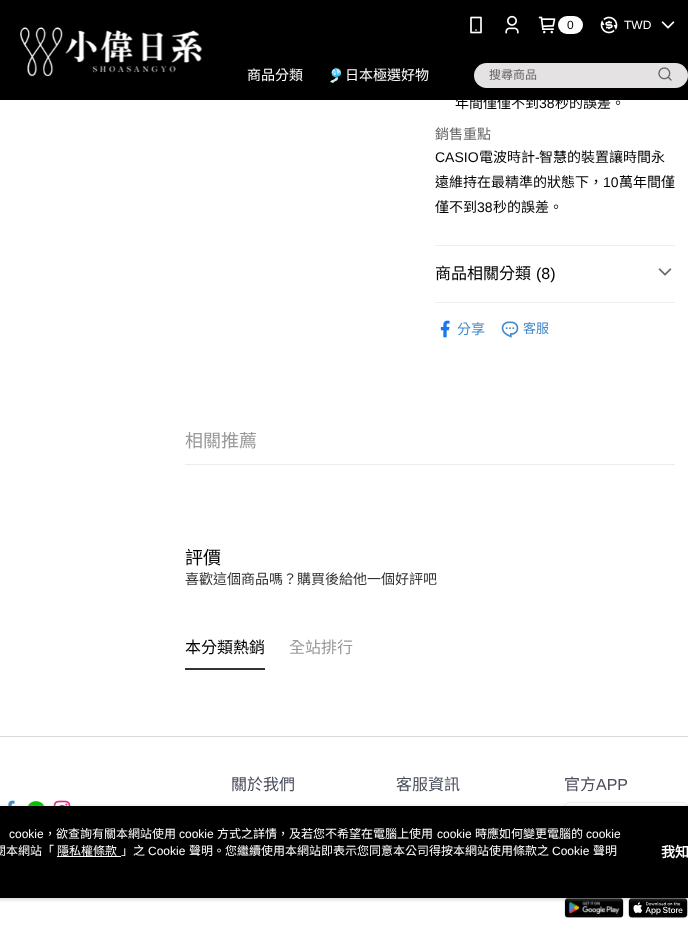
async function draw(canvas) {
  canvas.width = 688;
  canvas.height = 944;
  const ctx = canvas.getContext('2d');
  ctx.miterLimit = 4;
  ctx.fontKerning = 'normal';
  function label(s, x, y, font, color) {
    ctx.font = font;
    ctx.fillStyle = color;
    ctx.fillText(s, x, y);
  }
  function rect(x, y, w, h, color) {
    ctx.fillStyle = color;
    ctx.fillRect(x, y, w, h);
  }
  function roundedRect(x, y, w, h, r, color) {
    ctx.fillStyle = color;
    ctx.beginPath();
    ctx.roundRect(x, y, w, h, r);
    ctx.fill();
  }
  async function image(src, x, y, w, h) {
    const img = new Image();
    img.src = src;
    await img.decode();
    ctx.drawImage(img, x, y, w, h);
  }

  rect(0, 0, 688, 944, '#fff');
  rect(0, 0, 688, 100, '#000');
  await image('assets/img1.png', 20, 27, 183, 50);
  await image('assets/img2.png', 470, 16, 12, 18);
  await image('assets/img3.png', 505, 15, 14, 19);
  await image('assets/img4.png', 538, 16, 18, 18);
  roundedRect(558, 16, 25, 18, 9, '#fff');
  label('0', 567, 29, '12px Liberation Sans', '#000');
  await image('assets/img5.png', 600, 16, 18, 18);
  label('TWD', 624, 29, '12px Liberation Sans', '#fff');
  await image('assets/img6.png', 661, 21, 14, 8);
  label('商品分類', 247, 80, '14px Noto Sans CJK TC', '#fff');
  label('🎐', 327, 80, '14px Noto Color Emoji', '#fff');
  label('日本極選好物', 345, 80, '14px Noto Sans CJK TC', '#fff');
  roundedRect(474, 63, 214, 25, 12.5, '#e4e2e2');
  label('搜尋商品', 489, 79, '12px Noto Sans CJK TC', '#666');
  await image('assets/img7.png', 658, 67, 14, 14);
  rect(435, 245, 240, 1, '#eceff1');
  label('年間僅僅不到', 455, 108, '14px Noto Sans CJK TC', '#000');
  label('38', 539, 108, '14px Liberation Sans', '#000');
  label('秒的誤差。', 555, 108, '14px Noto Sans CJK TC', '#000');
  label('銷售重點', 435, 139, '14px Noto Sans CJK TC', '#666');
  label('CASIO', 435, 162, '14px Liberation Sans', '#000');
  label('電波時計', 479, 162, '14px Noto Sans CJK TC', '#000');
  label('-', 535, 162, '14px Liberation Sans', '#000');
  label('智慧的裝置讓時間永', 539, 162, '14px Noto Sans CJK TC', '#000');
  label('遠維持在最精準的狀態下，', 435, 187, '14px Noto Sans CJK TC', '#000');
  label('10', 603, 187, '14px Liberation Sans', '#000');
  label('萬年間僅', 619, 187, '14px Noto Sans CJK TC', '#000');
  label('僅不到', 435, 212, '14px Noto Sans CJK TC', '#000');
  label('38', 477, 212, '14px Liberation Sans', '#000');
  label('秒的誤差。', 493, 212, '14px Noto Sans CJK TC', '#000');
  rect(435, 302, 240, 1, '#eceff1');
  label('商品相關分類', 435, 279, '16px Noto Sans CJK TC', '#000');
  label('(8)', 536, 279, '16px Liberation Sans', '#000');
  await image('assets/img8.png', 658, 268, 14, 8);
  await image('assets/img9.png', 440, 320, 10, 18);
  label('分享', 457, 334, '14px Noto Sans CJK TC', '#428bca');
  await image('assets/img10.png', 501, 321, 18, 17);
  label('客服', 523, 333, '13px Noto Sans CJK TC', '#428bca');
  rect(185, 464, 490, 1, '#ececec');
  label('相關推薦', 185, 447, '18px Noto Sans CJK TC', '#999');
  label('評價', 185, 564, '18px Noto Sans CJK TC', '#000');
  label('喜歡這個商品嗎？購買後給他一個好評吧', 185, 584, '14px Noto Sans CJK TC', '#333');
  rect(185, 668, 80, 2, '#333');
  label('本分類熱銷', 185, 653, '16px Noto Sans CJK TC', '#000');
  label('全站排行', 289, 653, '16px Noto Sans CJK TC', '#999');
  rect(0, 736, 688, 1, '#dadada');
  label('關於我們', 231, 790, '16px Noto Sans CJK TC', '#4a4e5c');
  label('客服資訊', 396, 790, '16px Noto Sans CJK TC', '#4a4e5c');
  label('官方', 564, 790, '16px Noto Sans CJK TC', '#4a4e5c');
  label('APP', 596, 790, '16px Liberation Sans', '#4a4e5c');
  ctx.beginPath();
  ctx.roundRect(564.5, 802.5, 123, 39, 4.5);
  ctx.strokeStyle = '#ededed';
  ctx.stroke();
  await image('assets/img11.png', 564, 898, 60, 20);
  await image('assets/img12.png', 628, 898, 60, 20);
  await image('assets/img13.png', 8, 800, 7, 6);
  await image('assets/img14.png', 28, 801, 16, 5);
  await image('assets/img15.png', 53, 800, 18, 6);
  ctx.fillStyle = '#97979780';
  ctx.filter = 'blur(2px)';
  ctx.beginPath();
  ctx.roundRect(-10, 807, 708, 92, 4);
  ctx.fill();
  ctx.filter = 'none';
  rect(0, 806, 688, 92, '#000');
  label('cookie', 9, 838, '12px Liberation Sans', '#fff');
  label('，欲查詢有關本網站使用', 44, 838, '12px Noto Sans CJK TC', '#fff');
  label('cookie', 179, 838, '12px Liberation Sans', '#fff');
  label('方式之詳情，及若您不希望在電腦上使用', 217, 838, '12px Noto Sans CJK TC', '#fff');
  label('cookie', 437, 838, '12px Liberation Sans', '#fff');
  label('時應如何變更電腦的', 475, 838, '12px Noto Sans CJK TC', '#fff');
  label('cookie', 586, 838, '12px Liberation Sans', '#fff');
  label('閱本網站「', -6, 855, '12px Noto Sans CJK TC', '#fff');
  label('隱私權條款', 57, 855, '12px Noto Sans CJK TC', '#fff');
  rect(57, 856, 64, 1, '#fff');
  label('」之', 121, 855, '12px Noto Sans CJK TC', '#fff');
  label('Cookie', 148, 855, '12px Liberation Sans', '#fff');
  label('聲明。您繼續使用本網站即表示您同意本公司得按本網站使用條款之', 189, 855, '12px Noto Sans CJK TC', '#fff');
  label('Cookie', 552, 855, '12px Liberation Sans', '#fff');
  label('聲明', 593, 855, '12px Noto Sans CJK TC', '#fff');
  label('我知', 661, 857, 'bold 14px Noto Sans CJK TC', '#fff');
}

draw(document.querySelector('canvas'));
